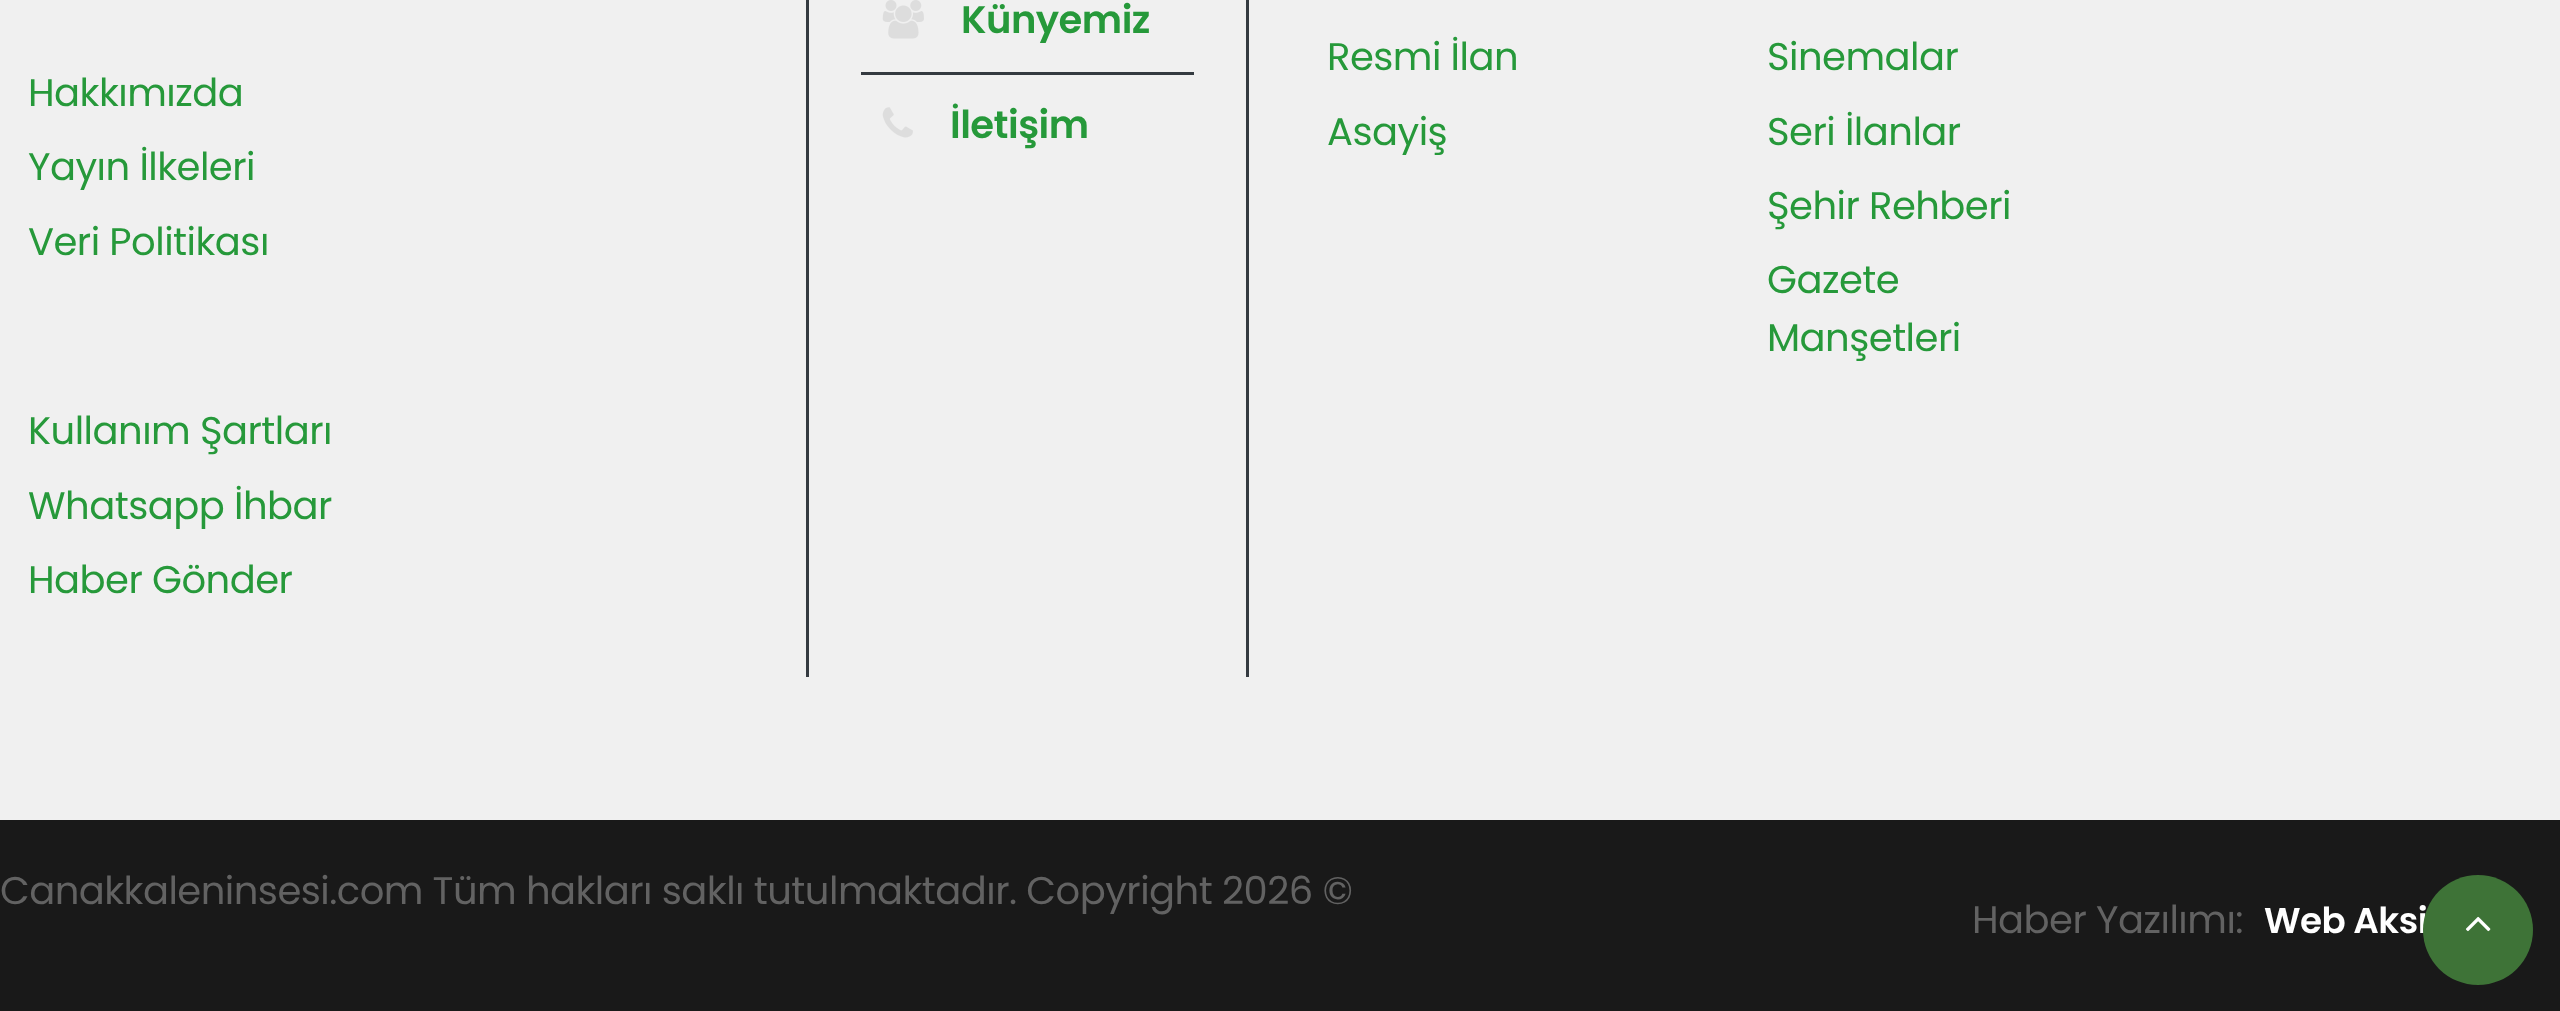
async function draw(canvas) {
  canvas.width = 2560;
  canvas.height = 1011;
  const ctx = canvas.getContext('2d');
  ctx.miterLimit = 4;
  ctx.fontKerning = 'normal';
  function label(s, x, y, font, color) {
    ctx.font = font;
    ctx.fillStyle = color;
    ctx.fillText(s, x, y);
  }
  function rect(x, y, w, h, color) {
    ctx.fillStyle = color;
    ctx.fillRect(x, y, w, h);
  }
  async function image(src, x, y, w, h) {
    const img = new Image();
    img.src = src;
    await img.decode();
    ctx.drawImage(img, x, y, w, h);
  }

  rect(0, 0, 2560, 1011, '#f0f0f0');
  ctx.letterSpacing = '-0.53px';
  label('Hakkımızda', 28, 106, '38.5px Poppins', '#26993a');
  label('Yayın İlkeleri', 28, 180, '38.5px Poppins', '#26993a');
  label('Veri Politikası', 28, 255, '38.5px Poppins', '#26993a');
  label('Kullanım Şartları', 28, 444, '38.5px Poppins', '#26993a');
  label('Whatsapp İhbar', 28, 519, '38.5px Poppins', '#26993a');
  label('Haber Gönder', 28, 593, '38.5px Poppins', '#26993a');
  rect(1246, 0, 3, 677, '#343a40');
  rect(806, 0, 3, 677, '#343a40');
  rect(861, 72, 333, 3, '#343a40');
  await image('assets/img1.png', 882, 0, 42, 39);
  label('Künyemiz', 961, 33, '600 38.5px Poppins', '#26993a');
  await image('assets/img2.png', 882, 107, 31, 31);
  label('İletişim', 950, 138, '600 38.5px Poppins', '#26993a');
  label('Resmi İlan', 1327, 70, '38.5px Poppins', '#26993a');
  label('Asayiş', 1327, 145, '38.5px Poppins', '#26993a');
  label('Sinemalar', 1767, 70, '38.5px Poppins', '#26993a');
  label('Seri İlanlar', 1767, 145, '38.5px Poppins', '#26993a');
  label('Şehir Rehberi', 1767, 219, '38.5px Poppins', '#26993a');
  label('Gazete', 1767, 293, '38.5px Poppins', '#26993a');
  label('Manşetleri', 1767, 351, '38.5px Poppins', '#26993a');
  rect(0, 820, 2560, 191, '#191919');
  label('Canakkaleninsesi.com Tüm hakları saklı tutulmaktadır. Copyright 2026 ©', 0, 904, '38.5px Poppins', '#626262');
  label('Haber Yazılımı:', 1972, 933, '38.5px Poppins', '#626262');
  label('Web Aksi', 2264, 933, '600 35.75px Poppins', '#fff');
  ctx.fillStyle = '#3e7337';
  ctx.beginPath();
  ctx.arc(2478, 930, 55, 0, 2 * Math.PI);
  ctx.fill();
  await image('assets/img3.png', 2465, 916, 26, 16);
}

draw(document.querySelector('canvas'));
